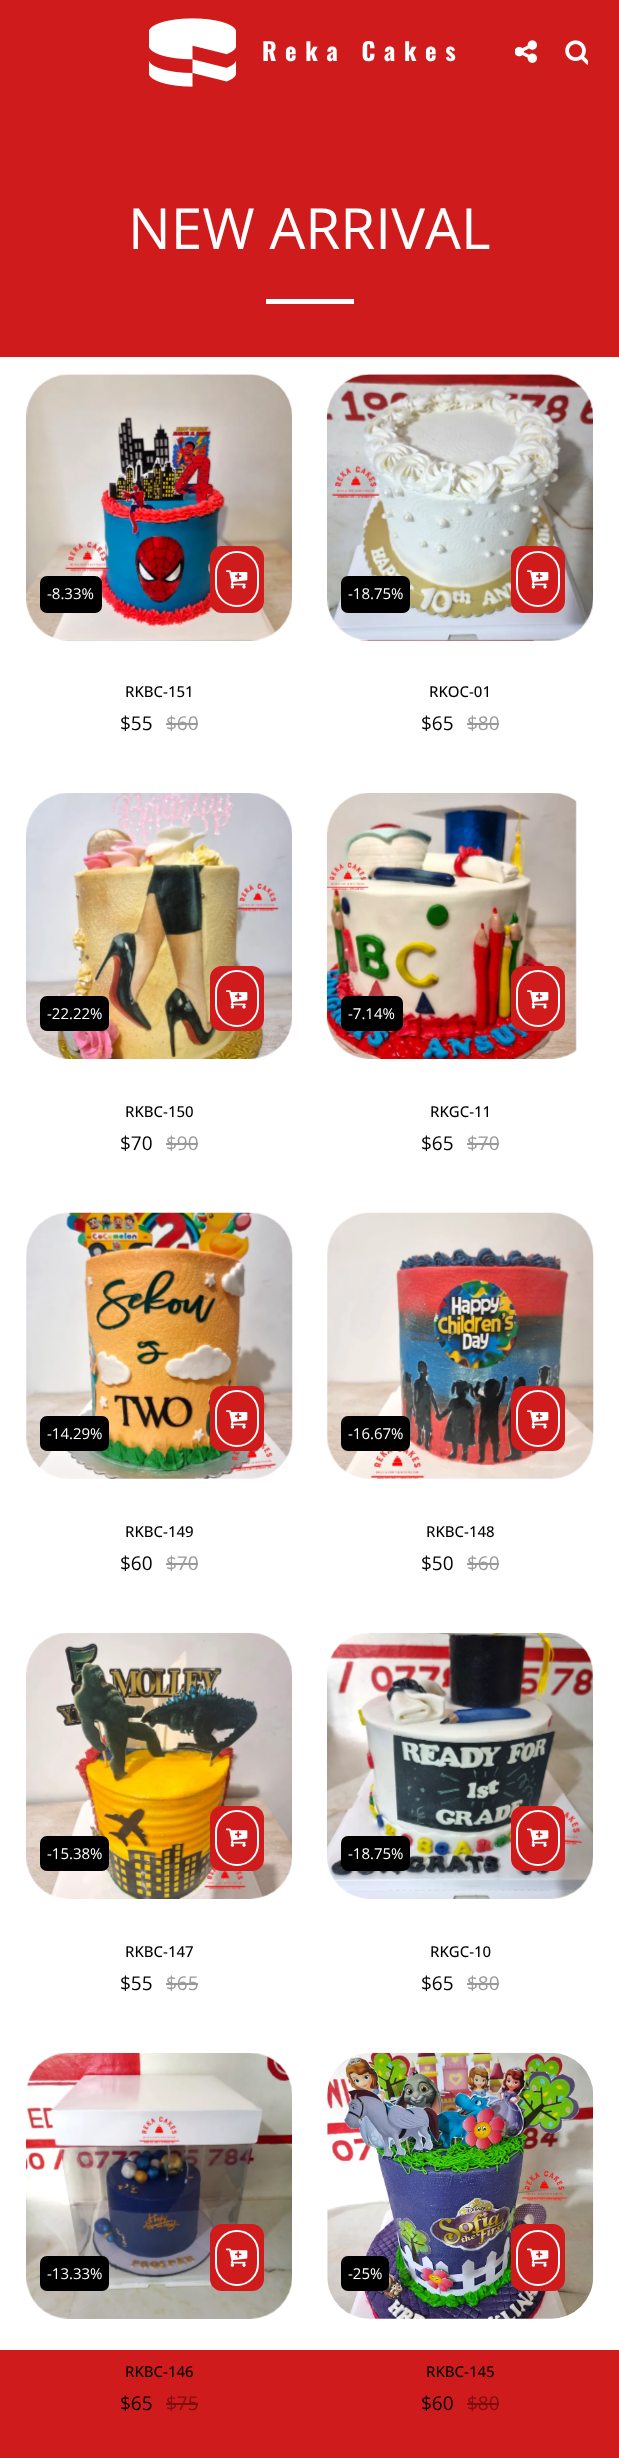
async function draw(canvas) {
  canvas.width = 619;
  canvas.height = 2458;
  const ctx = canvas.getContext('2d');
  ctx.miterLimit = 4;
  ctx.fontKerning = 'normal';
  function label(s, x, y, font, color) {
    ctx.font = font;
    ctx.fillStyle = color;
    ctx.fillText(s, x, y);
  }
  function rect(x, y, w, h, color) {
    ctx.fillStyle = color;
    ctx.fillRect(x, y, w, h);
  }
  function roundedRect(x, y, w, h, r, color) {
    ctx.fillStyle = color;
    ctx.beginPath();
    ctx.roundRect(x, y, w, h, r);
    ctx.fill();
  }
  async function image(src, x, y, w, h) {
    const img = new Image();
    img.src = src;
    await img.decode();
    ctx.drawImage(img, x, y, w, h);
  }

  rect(0, 0, 619, 2458, '#fff');
  rect(0, 0, 619, 357, '#cf1b1b');
  await image('assets/img1.png', 149, 18, 87, 69);
  ctx.letterSpacing = '8.75px';
  label('Reka Cakes', 262, 61, 'bold 24.5px Oswald', '#fff');
  await image('assets/img2.png', 515, 40, 22, 23);
  await image('assets/img3.png', 565, 40, 23, 25);
  ctx.letterSpacing = '0px';
  label('NEW ARRIVAL', 128, 249, '56.75px Open Sans', '#fff');
  rect(266, 299, 88, 5, '#fff');
  await image('assets/img4.png', 26, 374, 266, 267);
  await image('assets/img5.png', 60, 640, 199, 1);
  roundedRect(40, 576, 62, 37, 7, '#000');
  label('-8.33%', 47, 599, '15px Open Sans', '#fff');
  ctx.fillStyle = '#cf1b1b';
  ctx.beginPath();
  ctx.roundRect(211, 547, 52, 65, 11);
  ctx.fill();
  ctx.strokeStyle = '#cf1b1b';
  ctx.lineWidth = 2;
  ctx.stroke();
  ctx.beginPath();
  ctx.roundRect(216, 552, 42, 54, 21);
  ctx.strokeStyle = '#fff';
  ctx.stroke();
  await image('assets/img6.png', 226, 570, 22, 19);
  label('RKBC-151', 125, 697, '500 15px Open Sans', '#000');
  label('$55', 120, 730, '19px Open Sans', '#000');
  label('$60', 166, 730, '19px Open Sans', '#999');
  rect(166, 723, 32, 2, '#999');
  await image('assets/img7.png', 327, 374, 266, 267);
  await image('assets/img8.png', 360, 639, 200, 2);
  roundedRect(341, 576, 69, 37, 7, '#000');
  label('-18.75%', 348, 599, '15px Open Sans', '#fff');
  ctx.fillStyle = '#cf1b1b';
  ctx.beginPath();
  ctx.roundRect(512, 547, 52, 65, 11);
  ctx.fill();
  ctx.strokeStyle = '#cf1b1b';
  ctx.stroke();
  ctx.beginPath();
  ctx.roundRect(517, 552, 42, 54, 21);
  ctx.strokeStyle = '#fff';
  ctx.stroke();
  await image('assets/img6.png', 527, 570, 22, 19);
  label('RKOC-01', 429, 697, '500 15px Open Sans', '#000');
  label('$65', 421, 730, '19px Open Sans', '#000');
  label('$80', 467, 730, '19px Open Sans', '#999');
  rect(467, 723, 32, 2, '#999');
  await image('assets/img9.png', 26, 793, 266, 266);
  roundedRect(40, 996, 69, 35, 7, '#000');
  label('-22.22%', 47, 1019, '15px Open Sans', '#fff');
  ctx.fillStyle = '#cf1b1b';
  ctx.beginPath();
  ctx.roundRect(211, 967, 52, 63, 11);
  ctx.fill();
  ctx.strokeStyle = '#cf1b1b';
  ctx.stroke();
  ctx.beginPath();
  ctx.roundRect(216, 971, 42, 55, 21);
  ctx.strokeStyle = '#fff';
  ctx.stroke();
  await image('assets/img6.png', 226, 990, 22, 19);
  label('RKBC-150', 125, 1117, '500 15px Open Sans', '#000');
  label('$70', 120, 1150, '19px Open Sans', '#000');
  label('$90', 166, 1150, '19px Open Sans', '#999');
  rect(166, 1143, 32, 2, '#999');
  await image('assets/img10.png', 327, 793, 250, 266);
  roundedRect(341, 996, 62, 35, 7, '#000');
  label('-7.14%', 348, 1019, '15px Open Sans', '#fff');
  ctx.fillStyle = '#cf1b1b';
  ctx.beginPath();
  ctx.roundRect(512, 967, 52, 63, 11);
  ctx.fill();
  ctx.strokeStyle = '#cf1b1b';
  ctx.stroke();
  ctx.beginPath();
  ctx.roundRect(517, 971, 42, 55, 21);
  ctx.strokeStyle = '#fff';
  ctx.stroke();
  await image('assets/img6.png', 527, 990, 22, 19);
  label('RKGC-11', 430, 1117, '500 15px Open Sans', '#000');
  label('$65', 421, 1150, '19px Open Sans', '#000');
  label('$70', 467, 1150, '19px Open Sans', '#999');
  rect(467, 1143, 32, 2, '#999');
  await image('assets/img11.png', 26, 1212, 267, 267);
  roundedRect(40, 1416, 69, 35, 7, '#000');
  label('-14.29%', 47, 1439, '15px Open Sans', '#fff');
  ctx.fillStyle = '#cf1b1b';
  ctx.beginPath();
  ctx.roundRect(211, 1387, 52, 63, 11);
  ctx.fill();
  ctx.strokeStyle = '#cf1b1b';
  ctx.stroke();
  ctx.beginPath();
  ctx.roundRect(216, 1391, 42, 55, 21);
  ctx.strokeStyle = '#fff';
  ctx.stroke();
  await image('assets/img6.png', 226, 1410, 22, 19);
  label('RKBC-149', 125, 1537, '500 15px Open Sans', '#000');
  label('$60', 120, 1570, '19px Open Sans', '#000');
  label('$70', 166, 1570, '19px Open Sans', '#999');
  rect(166, 1563, 32, 2, '#999');
  await image('assets/img12.png', 327, 1212, 267, 267);
  roundedRect(341, 1416, 69, 35, 7, '#000');
  label('-16.67%', 348, 1439, '15px Open Sans', '#fff');
  ctx.fillStyle = '#cf1b1b';
  ctx.beginPath();
  ctx.roundRect(512, 1387, 52, 63, 11);
  ctx.fill();
  ctx.strokeStyle = '#cf1b1b';
  ctx.stroke();
  ctx.beginPath();
  ctx.roundRect(517, 1391, 42, 55, 21);
  ctx.strokeStyle = '#fff';
  ctx.stroke();
  await image('assets/img6.png', 527, 1410, 22, 19);
  label('RKBC-148', 426, 1537, '500 15px Open Sans', '#000');
  label('$50', 421, 1570, '19px Open Sans', '#000');
  label('$60', 467, 1570, '19px Open Sans', '#999');
  rect(467, 1563, 32, 2, '#999');
  await image('assets/img13.png', 26, 1633, 266, 266);
  roundedRect(40, 1836, 69, 35, 7, '#000');
  label('-15.38%', 47, 1859, '15px Open Sans', '#fff');
  ctx.fillStyle = '#cf1b1b';
  ctx.beginPath();
  ctx.roundRect(211, 1807, 52, 63, 11);
  ctx.fill();
  ctx.strokeStyle = '#cf1b1b';
  ctx.stroke();
  ctx.beginPath();
  ctx.roundRect(216, 1811, 42, 54, 21);
  ctx.strokeStyle = '#fff';
  ctx.stroke();
  await image('assets/img14.png', 226, 1828, 22, 19);
  label('RKBC-147', 125, 1957, '500 15px Open Sans', '#000');
  label('$55', 120, 1990, '19px Open Sans', '#000');
  label('$65', 166, 1990, '19px Open Sans', '#999');
  rect(166, 1983, 32, 2, '#999');
  await image('assets/img15.png', 327, 1633, 266, 266);
  roundedRect(341, 1836, 69, 35, 7, '#000');
  label('-18.75%', 348, 1859, '15px Open Sans', '#fff');
  ctx.fillStyle = '#cf1b1b';
  ctx.beginPath();
  ctx.roundRect(512, 1807, 52, 63, 11);
  ctx.fill();
  ctx.strokeStyle = '#cf1b1b';
  ctx.stroke();
  ctx.beginPath();
  ctx.roundRect(517, 1811, 42, 54, 21);
  ctx.strokeStyle = '#fff';
  ctx.stroke();
  await image('assets/img14.png', 527, 1828, 22, 19);
  label('RKGC-10', 430, 1957, '500 15px Open Sans', '#000');
  label('$65', 421, 1990, '19px Open Sans', '#000');
  label('$80', 467, 1990, '19px Open Sans', '#999');
  rect(467, 1983, 32, 2, '#999');
  await image('assets/img16.png', 26, 2053, 266, 266);
  roundedRect(40, 2256, 69, 35, 7, '#000');
  label('-13.33%', 47, 2279, '15px Open Sans', '#fff');
  ctx.fillStyle = '#cf1b1b';
  ctx.beginPath();
  ctx.roundRect(211, 2225, 52, 65, 11);
  ctx.fill();
  ctx.strokeStyle = '#cf1b1b';
  ctx.stroke();
  ctx.beginPath();
  ctx.roundRect(216, 2231, 42, 54, 21);
  ctx.strokeStyle = '#fff';
  ctx.stroke();
  await image('assets/img14.png', 226, 2248, 22, 19);
  rect(0, 2350, 619, 108, '#cf1b1b');
  label('RKBC-146', 125, 2377, '500 15px Open Sans', '#000');
  label('$65', 120, 2410, '19px Open Sans', '#000');
  label('$75', 166, 2410, '19px Open Sans', '#7c1010');
  rect(166, 2403, 32, 2, '#7c1010');
  await image('assets/img17.png', 327, 2052, 267, 267);
  roundedRect(341, 2256, 48, 35, 7, '#000');
  label('-25%', 348, 2279, '15px Open Sans', '#fff');
  ctx.fillStyle = '#cf1b1b';
  ctx.beginPath();
  ctx.roundRect(512, 2225, 52, 65, 11);
  ctx.fill();
  ctx.strokeStyle = '#cf1b1b';
  ctx.stroke();
  ctx.beginPath();
  ctx.roundRect(517, 2231, 42, 54, 21);
  ctx.strokeStyle = '#fff';
  ctx.stroke();
  await image('assets/img14.png', 527, 2248, 22, 19);
  label('RKBC-145', 426, 2377, '500 15px Open Sans', '#000');
  label('$60', 421, 2410, '19px Open Sans', '#000');
  label('$80', 467, 2410, '19px Open Sans', '#7c1010');
  rect(467, 2403, 32, 2, '#7c1010');
}

draw(document.querySelector('canvas'));
